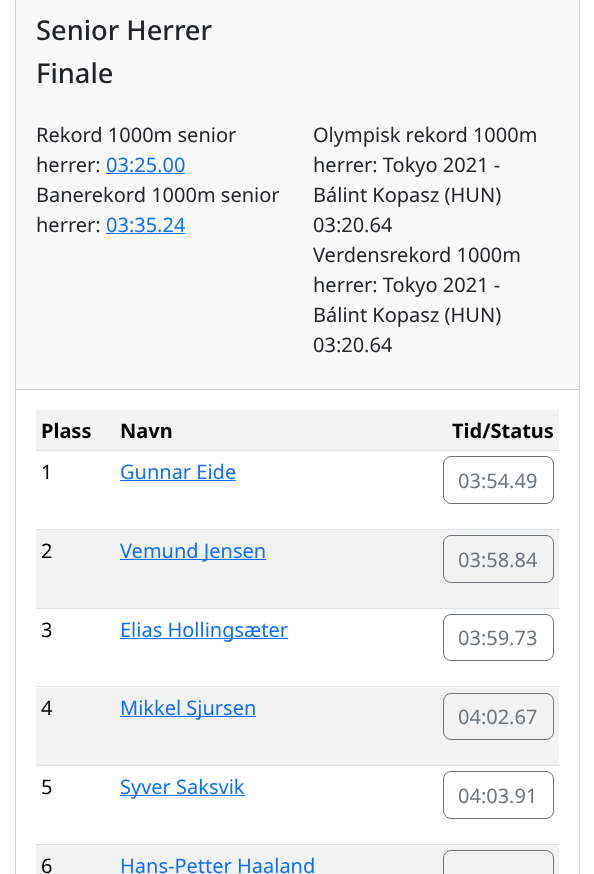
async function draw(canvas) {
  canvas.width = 594;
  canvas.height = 874;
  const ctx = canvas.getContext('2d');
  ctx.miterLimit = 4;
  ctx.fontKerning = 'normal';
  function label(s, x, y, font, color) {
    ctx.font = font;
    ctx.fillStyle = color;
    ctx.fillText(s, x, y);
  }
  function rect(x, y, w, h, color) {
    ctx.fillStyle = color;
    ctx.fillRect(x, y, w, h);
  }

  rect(0, 0, 594, 874, '#fff');
  ctx.strokeStyle = '#d2d2d2';
  ctx.strokeRect(15.5, -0.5, 564, 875);
  rect(16, 0, 563, 389, '#f9f9f9');
  rect(16, 389, 563, 1, '#cdcdcd');
  label('Senior Herrer', 36, 40, '500 27.25px Noto Sans', '#212529');
  label('Finale', 36, 83, '500 27.25px Noto Sans', '#212529');
  label('Rekord 1000m senior', 36, 142, '20px Noto Sans', '#212529');
  label('herrer:', 36, 172, '20px Noto Sans', '#212529');
  label('03:25.00', 106, 172, '20px Noto Sans', '#0d6efd');
  rect(106, 173, 79, 1, '#0d6efd');
  label('Banerekord 1000m senior', 36, 202, '20px Noto Sans', '#212529');
  label('herrer:', 36, 232, '20px Noto Sans', '#212529');
  label('03:35.24', 106, 232, '20px Noto Sans', '#0d6efd');
  rect(106, 233, 79, 1, '#0d6efd');
  label('Olympisk rekord 1000m', 313, 142, '20px Noto Sans', '#212529');
  label('herrer: Tokyo 2021 -', 313, 172, '20px Noto Sans', '#212529');
  label('Bálint Kopasz (HUN)', 313, 202, '20px Noto Sans', '#212529');
  label('03:20.64', 313, 232, '20px Noto Sans', '#212529');
  label('Verdensrekord 1000m', 313, 262, '20px Noto Sans', '#212529');
  label('herrer: Tokyo 2021 -', 313, 292, '20px Noto Sans', '#212529');
  label('Bálint Kopasz (HUN)', 313, 322, '20px Noto Sans', '#212529');
  label('03:20.64', 313, 352, '20px Noto Sans', '#212529');
  rect(36, 410, 523, 40, '#f2f2f2');
  label('Plass', 41, 438, 'bold 20px Noto Sans', '#000');
  label('Navn', 120, 438, 'bold 20px Noto Sans', '#000');
  rect(36, 450, 524, 1, '#dee2e6');
  label('Tid/Status', 452, 438, 'bold 20px Noto Sans', '#000');
  label('1', 41, 479, '20px Noto Sans', '#000');
  label('Gunnar Eide', 120, 479, '20px Noto Sans', '#0d6efd');
  rect(120, 480, 116, 1, '#0d6efd');
  rect(36, 529, 524, 1, '#dee2e6');
  ctx.beginPath();
  ctx.roundRect(443.5, 456.5, 110, 47, 7.5);
  ctx.strokeStyle = '#6c757d';
  ctx.stroke();
  label('03:54.49', 458, 488, '20px Noto Sans', '#6c757d');
  rect(36, 530, 523, 78, '#f2f2f2');
  label('2', 41, 558, '20px Noto Sans', '#000');
  rect(120, 559, 146, 1, '#0d6efd');
  label('Vemund Jensen', 120, 558, '20px Noto Sans', '#0d6efd');
  rect(36, 608, 524, 1, '#dee2e6');
  ctx.beginPath();
  ctx.roundRect(443.5, 535.5, 110, 47, 7.5);
  ctx.stroke();
  label('03:58.84', 458, 567, '20px Noto Sans', '#6c757d');
  label('3', 41, 637, '20px Noto Sans', '#000');
  rect(120, 638, 168, 1, '#0d6efd');
  label('Elias Hollingsæter', 120, 637, '20px Noto Sans', '#0d6efd');
  rect(36, 686, 524, 1, '#dee2e6');
  ctx.beginPath();
  ctx.roundRect(443.5, 614.5, 110, 46, 7.5);
  ctx.stroke();
  label('03:59.73', 458, 645, '20px Noto Sans', '#6c757d');
  rect(36, 688, 523, 77, '#f2f2f2');
  label('4', 41, 715, '20px Noto Sans', '#000');
  rect(120, 716, 136, 1, '#0d6efd');
  label('Mikkel Sjursen', 120, 715, '20px Noto Sans', '#0d6efd');
  rect(36, 765, 524, 1, '#dee2e6');
  ctx.beginPath();
  ctx.roundRect(443.5, 693.5, 110, 46, 7.5);
  ctx.stroke();
  label('04:02.67', 458, 724, '20px Noto Sans', '#6c757d');
  label('5', 41, 794, '20px Noto Sans', '#000');
  rect(120, 795, 125, 1, '#0d6efd');
  label('Syver Saksvik', 120, 794, '20px Noto Sans', '#0d6efd');
  rect(36, 844, 524, 1, '#dee2e6');
  ctx.beginPath();
  ctx.roundRect(443.5, 771.5, 110, 47, 7.5);
  ctx.stroke();
  label('04:03.91', 458, 803, '20px Noto Sans', '#6c757d');
  rect(36, 845, 523, 29, '#f2f2f2');
  label('6', 41, 873, '20px Noto Sans', '#000');
  label('Hans-Petter Haaland', 120, 873, '20px Noto Sans', '#0d6efd');
  ctx.beginPath();
  ctx.roundRect(443.5, 850.5, 110, 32, 7.5);
  ctx.stroke();
}

draw(document.querySelector('canvas'));
